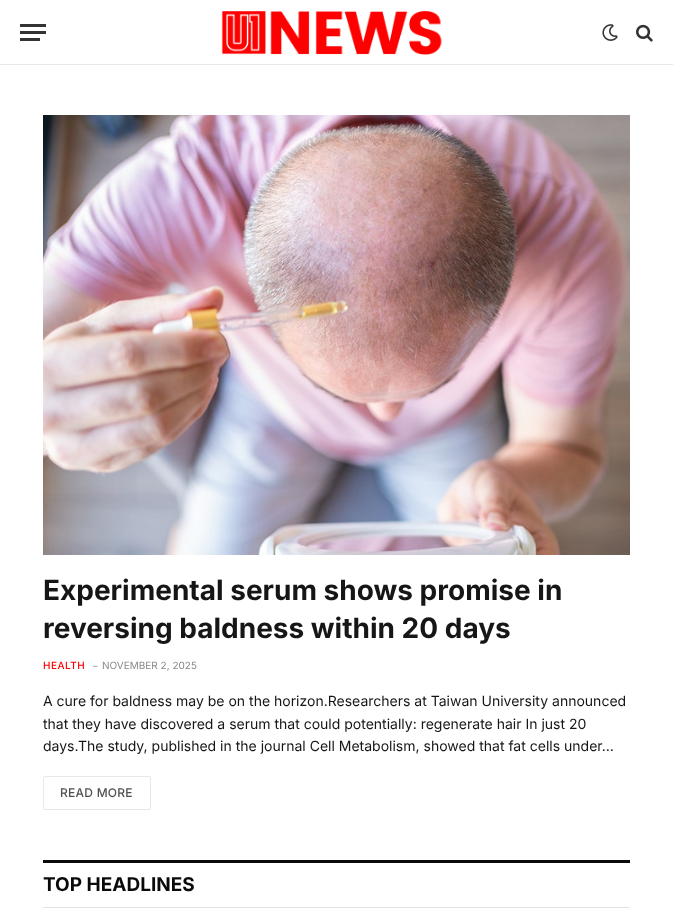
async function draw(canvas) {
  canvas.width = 673;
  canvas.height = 924;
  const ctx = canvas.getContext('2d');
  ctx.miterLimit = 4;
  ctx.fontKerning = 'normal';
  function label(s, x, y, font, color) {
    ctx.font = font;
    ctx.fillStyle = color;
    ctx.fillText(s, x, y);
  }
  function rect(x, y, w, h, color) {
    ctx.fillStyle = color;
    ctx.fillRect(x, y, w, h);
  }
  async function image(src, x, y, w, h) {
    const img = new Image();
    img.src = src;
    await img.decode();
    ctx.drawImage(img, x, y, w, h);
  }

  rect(0, 0, 673, 924, '#fff');
  rect(0, 64, 673, 1, '#e8e8e8');
  rect(20, 38, 20, 3, '#333');
  rect(20, 24, 26, 3, '#333');
  rect(20, 31, 26, 3, '#333');
  await image('assets/img1.png', 221, 11, 221, 44);
  await image('assets/img2.png', 602, 24, 16, 17);
  await image('assets/img3.png', 636, 24, 17, 18);
  await image('assets/img4.png', 43, 115, 587, 440);
  label('Experimental serum shows promise in', 43, 600, 'bold 28px Inter', '#161616');
  label('reversing baldness within 20 days', 43, 638, 'bold 28px Inter', '#161616');
  ctx.letterSpacing = '0.5px';
  label('HEALTH', 43, 669, '500 10px Inter', '#f00');
  ctx.letterSpacing = '0px';
  label('–', 93, 669, '9px Inter', '#8a8a8a');
  label('NOVEMBER 2, 2025', 102, 669, '10px Inter', '#8a8a8a');
  label('A cure for baldness may be on the horizon.Researchers at Taiwan University announced', 43, 706, '14px Inter', '#161616');
  label('that they have discovered a serum that could potentially: regenerate hair In just 20', 43, 729, '14px Inter', '#161616');
  label('days.The study, published in the journal Cell Metabolism, showed that fat cells under…', 43, 751, '14px Inter', '#161616');
  ctx.beginPath();
  ctx.roundRect(43.5, 776.5, 107, 33, 1.5);
  ctx.strokeStyle = '#e8e8e8';
  ctx.stroke();
  ctx.letterSpacing = '0.25px';
  label('READ MORE', 60, 797, '500 12px Inter', '#505050');
  rect(43, 860, 587, 3, '#0a0a0a');
  rect(43, 907, 587, 1, '#e2e2e2');
  ctx.letterSpacing = '0px';
  label('TOP HEADLINES', 43, 891, 'bold 19px Inter', '#0a0a0a');
}

draw(document.querySelector('canvas'));
